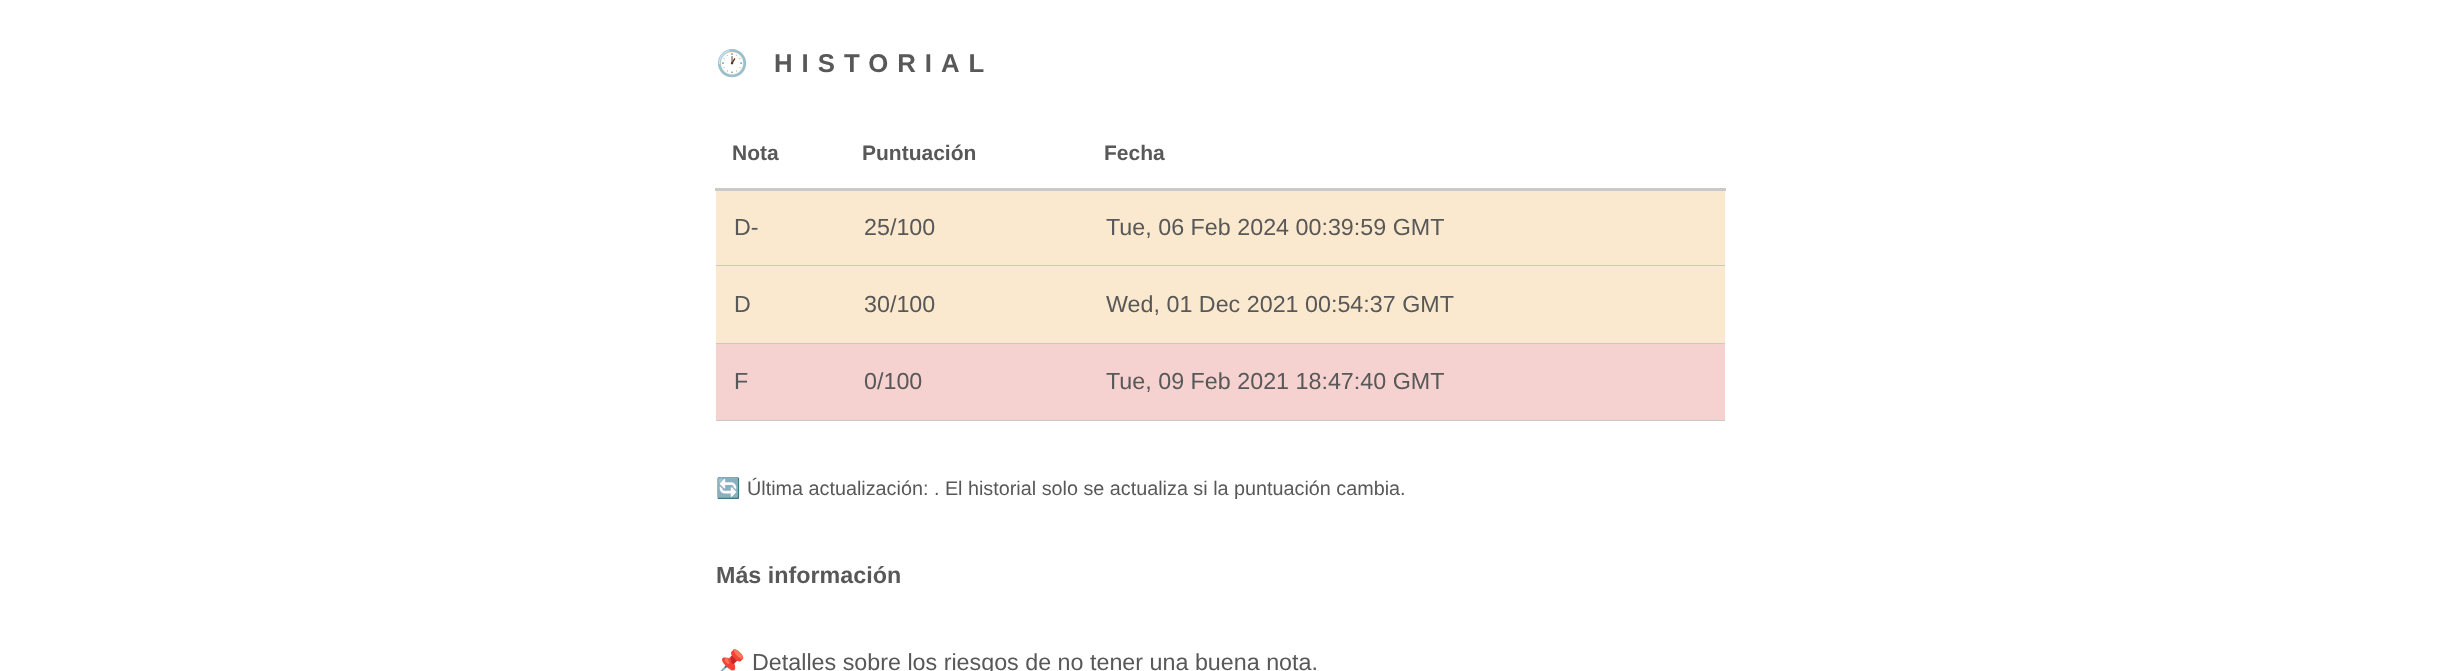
async function draw(canvas) {
  canvas.width = 2441;
  canvas.height = 671;
  const ctx = canvas.getContext('2d');
  ctx.miterLimit = 4;
  ctx.fontKerning = 'normal';
  function label(s, x, y, font, color) {
    ctx.font = font;
    ctx.fillStyle = color;
    ctx.fillText(s, x, y);
  }
  function rect(x, y, w, h, color) {
    ctx.fillStyle = color;
    ctx.fillRect(x, y, w, h);
  }

  rect(0, 0, 2441, 671, '#fff');
  ctx.letterSpacing = '9px';
  label('🕐', 716, 72, 'bold 25.75px Noto Color Emoji', '#585858');
  label('HISTORIAL', 774, 72, 'bold 25.75px Liberation Sans', '#585858');
  rect(715, 188, 1011, 3, '#c9c9c9');
  ctx.letterSpacing = '0px';
  label('Nota', 732, 160, 'bold 21px Liberation Sans', '#585858');
  label('Puntuación', 862, 160, 'bold 21px Liberation Sans', '#585858');
  label('Fecha', 1104, 160, 'bold 21px Liberation Sans', '#585858');
  rect(716, 191, 1009, 74, '#fbe9cf');
  label('D-', 734, 235, '23.3px Liberation Sans', '#585858');
  label('25/100', 864, 235, '23.3px Liberation Sans', '#585858');
  label('Tue, 06 Feb 2024 00:39:59 GMT', 1106, 235, '23.3px Liberation Sans', '#585858');
  rect(716, 266, 1009, 77, '#fbe9cf');
  rect(716, 265, 1009, 1, '#c9c9c9');
  label('D', 734, 312, '23.3px Liberation Sans', '#585858');
  label('30/100', 864, 312, '23.3px Liberation Sans', '#585858');
  label('Wed, 01 Dec 2021 00:54:37 GMT', 1106, 312, '23.3px Liberation Sans', '#585858');
  rect(716, 344, 1009, 76, '#f5d1d0');
  rect(716, 343, 1009, 1, '#c9c9c9');
  rect(716, 420, 1009, 1, '#c9c9c9');
  label('F', 734, 389, '23.3px Liberation Sans', '#585858');
  label('0/100', 864, 389, '23.3px Liberation Sans', '#585858');
  label('Tue, 09 Feb 2021 18:47:40 GMT', 1106, 389, '23.3px Liberation Sans', '#585858');
  label('🔄', 716, 495, '19.8px Noto Color Emoji', '#585858');
  label('Última actualización: . El historial solo se actualiza si la puntuación cambia.', 747, 495, '19.8px Liberation Sans', '#585858');
  label('Más información', 716, 583, 'bold 23.3px Liberation Sans', '#585858');
  label('📌', 716, 670, '23.3px Noto Color Emoji', '#585858');
  label('Detalles sobre los riesgos de no tener una buena nota.', 752, 670, '23.3px Liberation Sans', '#585858');
}

draw(document.querySelector('canvas'));
